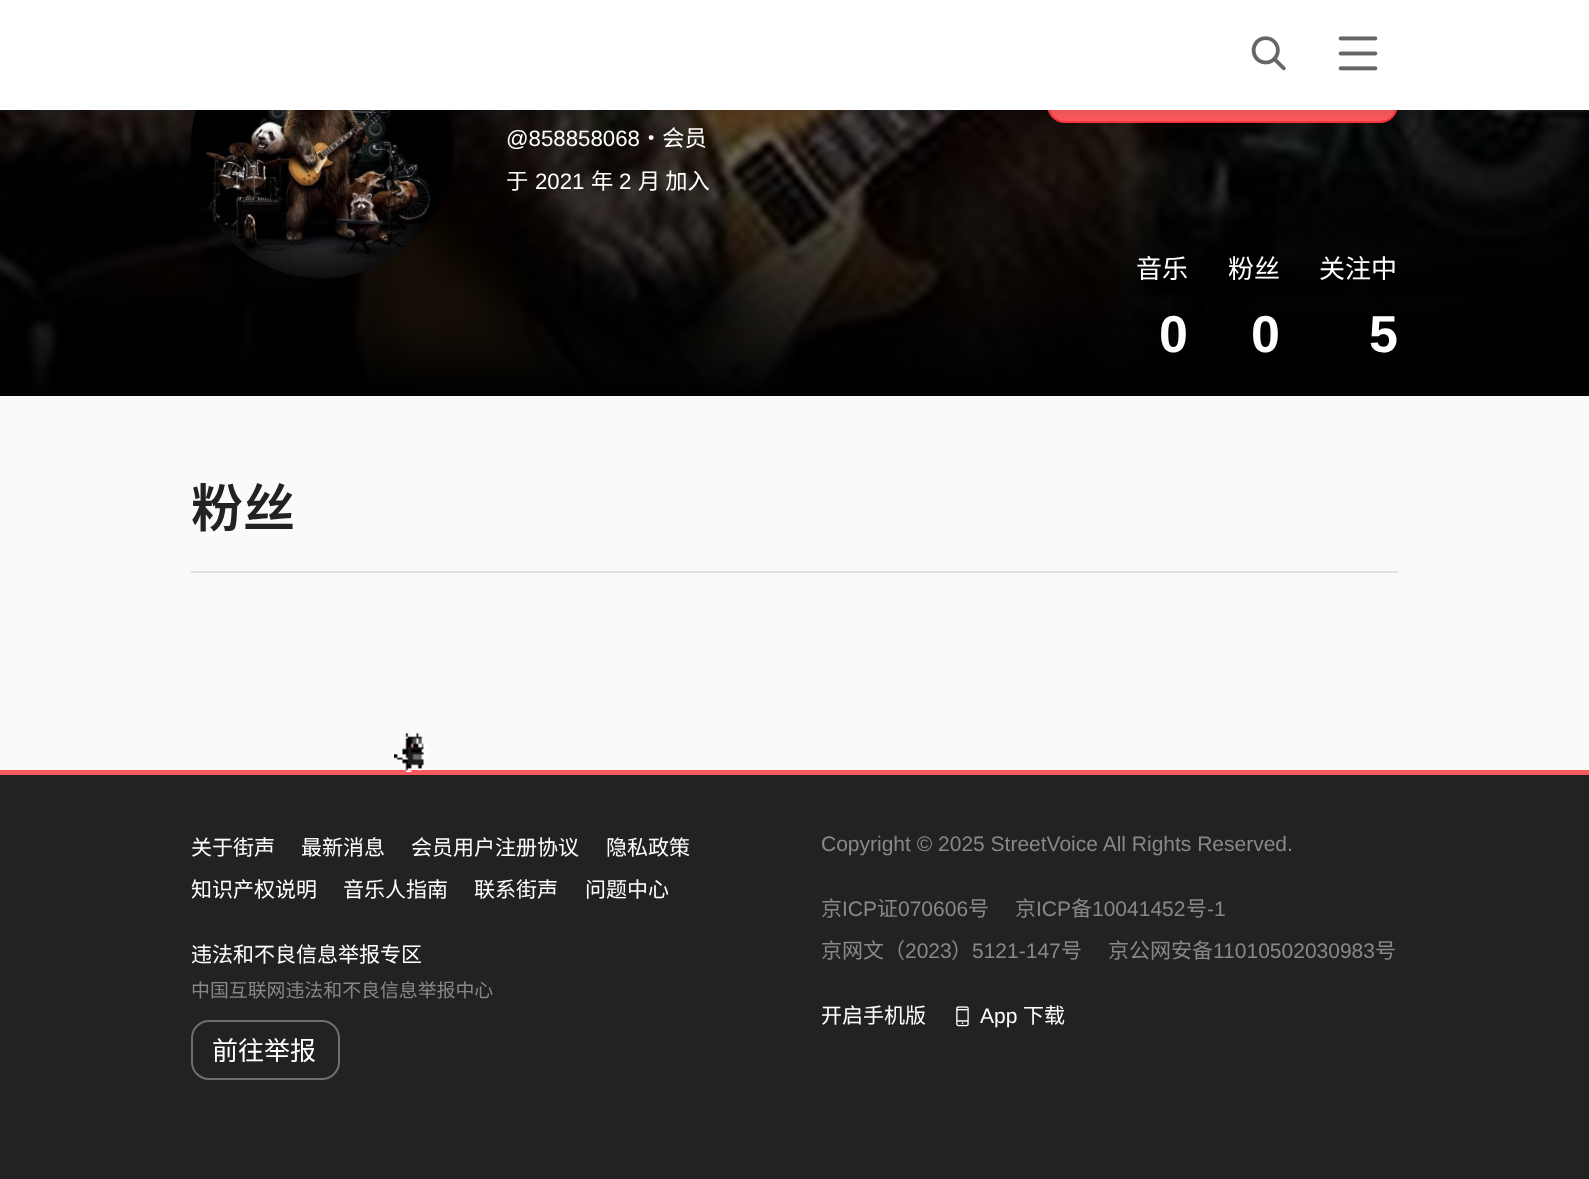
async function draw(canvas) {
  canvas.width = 1589;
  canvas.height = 1179;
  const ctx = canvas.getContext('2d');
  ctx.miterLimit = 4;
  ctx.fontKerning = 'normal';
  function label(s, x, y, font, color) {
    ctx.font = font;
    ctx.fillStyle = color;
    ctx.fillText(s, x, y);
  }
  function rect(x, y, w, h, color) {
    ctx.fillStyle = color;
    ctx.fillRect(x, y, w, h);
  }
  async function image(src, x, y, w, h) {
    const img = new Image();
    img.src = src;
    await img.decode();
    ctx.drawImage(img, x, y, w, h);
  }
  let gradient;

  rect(0, 0, 1589, 1179, '#fafafa');
  await image('assets/img3.png', 0, 110, 1589, 282);
  gradient = ctx.createLinearGradient(795, -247, 795, 396);
  gradient.addColorStop(0, '#00000000');
  gradient.addColorStop(1, '#000');
  ctx.fillStyle = gradient;
  ctx.fillRect(0, 110, 1589, 286);
  await image('assets/img4.png', 191, 110, 262, 168);
  ctx.fillStyle = '#f9595f';
  ctx.beginPath();
  ctx.roundRect(1048, 43, 349, 79, 17);
  ctx.fill();
  ctx.strokeStyle = '#f8343b';
  ctx.lineWidth = 2;
  ctx.stroke();
  ctx.fillStyle = '#0000001a';
  ctx.filter = 'blur(3.5px)';
  ctx.beginPath();
  ctx.rect(0, 2, 1589, 110);
  ctx.fill();
  ctx.filter = 'none';
  rect(0, 0, 1589, 110, '#fff');
  await image('assets/img1.png', 1251, 36, 35, 35);
  await image('assets/img2.png', 1338, 36, 40, 35);
  label('@858858068', 506, 146, '22.25px Liberation Sans', '#fff');
  label('・会员', 640, 146, '22.25px Noto Sans SC', '#fff');
  label('于', 506, 189, '22.25px Noto Sans SC', '#fff');
  label('2021', 535, 189, '22.25px Liberation Sans', '#fff');
  label('年', 591, 189, '22.25px Noto Sans SC', '#fff');
  label('2', 619, 189, '22.25px Liberation Sans', '#fff');
  label('月 加入', 638, 189, '22.25px Noto Sans SC', '#fff');
  label('音乐', 1136, 278, '26px Noto Sans SC', '#fff');
  label('0', 1159, 352, 'bold 52px Liberation Sans', '#fff');
  label('粉丝', 1228, 278, '26px Noto Sans SC', '#fff');
  label('0', 1251, 352, 'bold 52px Liberation Sans', '#fff');
  label('关注中', 1319, 278, '26px Noto Sans SC', '#fff');
  label('5', 1369, 352, 'bold 52px Liberation Sans', '#fff');
  label('粉丝', 191, 527, '600 52px Noto Sans SC', '#222');
  rect(191, 571, 1207, 2, '#e1e1e1');
  rect(0, 775, 1589, 404, '#222');
  rect(0, 770, 1589, 5, '#f9595f');
  await image('assets/img5.png', 394, 732, 33, 40);
  label('关于街声', 191, 855, '21px Noto Sans SC', '#fff');
  label('最新消息', 301, 855, '21px Noto Sans SC', '#fff');
  label('会员用户注册协议', 411, 855, '21px Noto Sans SC', '#fff');
  label('隐私政策', 606, 855, '21px Noto Sans SC', '#fff');
  label('知识产权说明', 191, 897, '21px Noto Sans SC', '#fff');
  label('音乐人指南', 343, 897, '21px Noto Sans SC', '#fff');
  label('联系街声', 474, 897, '21px Noto Sans SC', '#fff');
  label('问题中心', 585, 897, '21px Noto Sans SC', '#fff');
  label('违法和不良信息举报专区', 191, 962, '21px Noto Sans SC', '#fff');
  label('中国互联网违法和不良信息举报中心', 191, 997, '18.9px Noto Sans SC', '#888');
  ctx.beginPath();
  ctx.roundRect(192, 1021, 147, 58, 17);
  ctx.strokeStyle = '#6f6f6f';
  ctx.stroke();
  label('前往举报', 212, 1060, '26px Noto Sans SC', '#fff');
  label('Copyright © 2025 StreetVoice All Rights Reserved.', 821, 851, '21px Liberation Sans', '#888');
  label('京', 821, 916, '21px Noto Sans SC', '#888');
  label('ICP', 842, 916, '21px Liberation Sans', '#888');
  label('证', 877, 916, '21px Noto Sans SC', '#888');
  label('070606', 898, 916, '21px Liberation Sans', '#888');
  label('号', 968, 916, '21px Noto Sans SC', '#888');
  label('京', 1015, 916, '21px Noto Sans SC', '#888');
  label('ICP', 1036, 916, '21px Liberation Sans', '#888');
  label('备', 1071, 916, '21px Noto Sans SC', '#888');
  label('10041452', 1092, 916, '21px Liberation Sans', '#888');
  label('号', 1186, 916, '21px Noto Sans SC', '#888');
  label('-1', 1207, 916, '21px Liberation Sans', '#888');
  label('京网文（', 821, 958, '21px Noto Sans SC', '#888');
  label('2023', 905, 958, '21px Liberation Sans', '#888');
  label('）', 951, 958, '21px Noto Sans SC', '#888');
  label('5121-147', 972, 958, '21px Liberation Sans', '#888');
  label('号', 1061, 958, '21px Noto Sans SC', '#888');
  label('京公网安备', 1108, 958, '21px Noto Sans SC', '#888');
  label('11010502030983', 1213, 958, '21px Liberation Sans', '#888');
  label('号', 1375, 958, '21px Noto Sans SC', '#888');
  label('开启手机版', 821, 1023, '21px Noto Sans SC', '#fff');
  await image('assets/img6.png', 956, 1006, 13, 21);
  label('App', 980, 1023, '21px Liberation Sans', '#fff');
  label('下载', 1023, 1023, '21px Noto Sans SC', '#fff');
}

draw(document.querySelector('canvas'));
